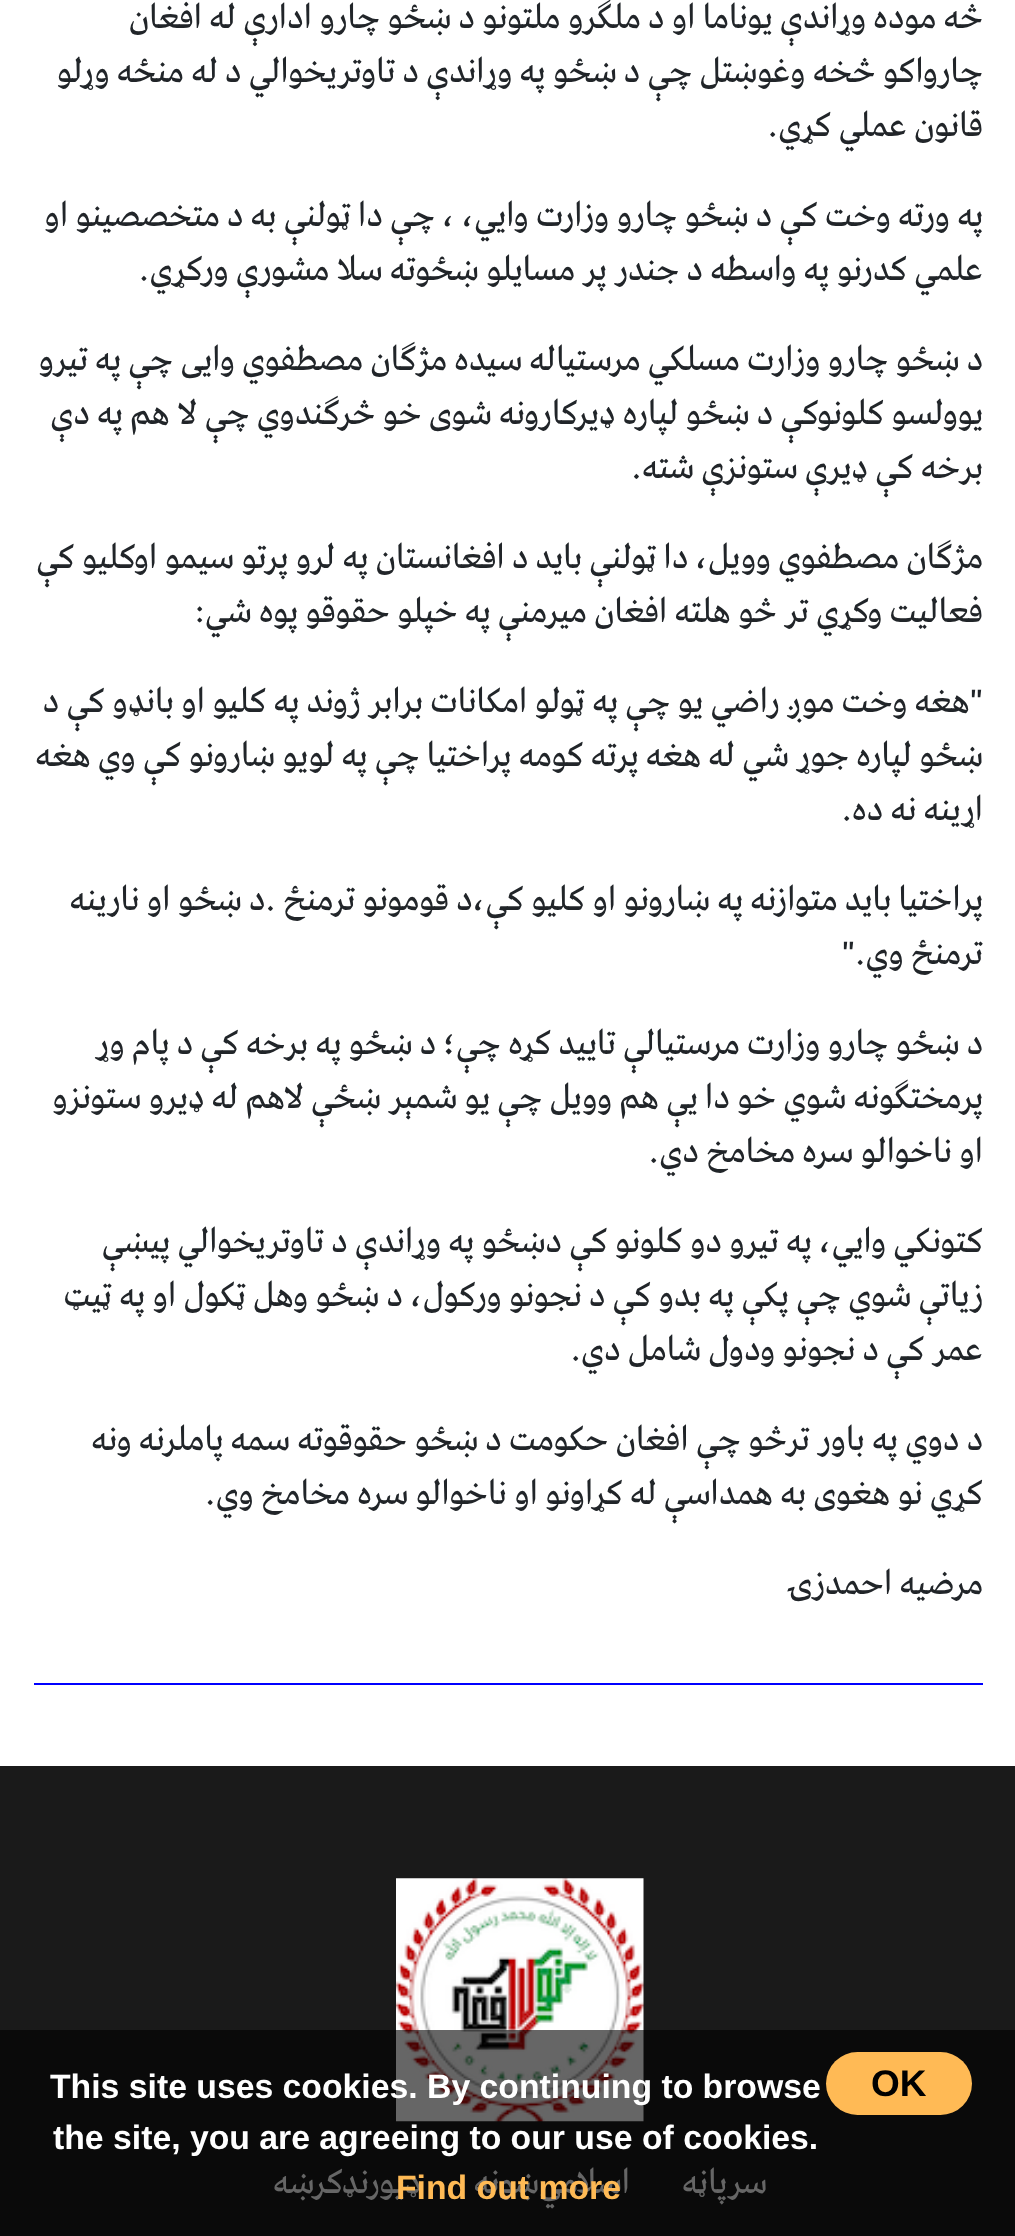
<svg xmlns="http://www.w3.org/2000/svg" width="1015" height="2236" viewBox="0 0 1015 2236">
  <rect width="100%" height="100%" fill="rgb(255,255,255)"/>
  <g font-family="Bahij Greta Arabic" font-size="36" direction="rtl" fill="rgb(33,37,41)">
    <text>
      <tspan x="983" y="28">څه موده وړاندې یوناما او د ملګرو ملتونو د ښځو چارو ادارې له افغان</tspan>
      <tspan x="983" y="82">چارواکو څخه وغوښتل چې د ښځو په وړاندې د تاوتریخوالي د له منځه وړلو</tspan>
      <tspan x="983" y="136">قانون عملي کړي.</tspan>
    </text>
    <text>
      <tspan x="983" y="226">په ورته وخت کې د ښځو چارو وزارت وايي، ، چې دا ټولنې به د متخصصینو او</tspan>
      <tspan x="983" y="280">علمي کدرنو په واسطه د جندر پر مسایلو ښځوته سلا مشورې ورکړي.</tspan>
    </text>
    <text>
      <tspan x="983" y="370">د ښځو چارو وزارت مسلکي مرستیاله سیده مژګان مصطفوي وایی چې په تیرو</tspan>
      <tspan x="983" y="424">یوولسو کلونوکې د ښځو لپاره ډیرکارونه شوی خو څرګندوي چې لا هم په دې</tspan>
      <tspan x="983" y="478">برخه کې ډیرې ستونزې شته.</tspan>
    </text>
    <text>
      <tspan x="983" y="568">مژګان مصطفوي وویل، دا ټولنې باید د افغانستان په لرو پرتو سیمو اوکلیو کې</tspan>
      <tspan x="983" y="622">فعالیت وکړي تر څو هلته افغان میرمنې په خپلو حقوقو پوه شي:</tspan>
    </text>
    <text>
      <tspan x="983" y="712">"هغه وخت موږ راضي یو چې په ټولو امکانات برابر ژوند په کلیو او بانډو کې د</tspan>
      <tspan x="983" y="766">ښځو لپاره جوړ شي له هغه پرته کومه پراختیا چې په لویو ښارونو کې وي هغه</tspan>
      <tspan x="983" y="820">اړینه نه ده.</tspan>
    </text>
    <text>
      <tspan x="983" y="910">پراختیا باید متوازنه په ښارونو او کلیو کې،د قومونو ترمنځ .د ښځو او نارینه</tspan>
      <tspan x="983" y="964">ترمنځ وي."</tspan>
    </text>
    <text>
      <tspan x="983" y="1054">د ښځو چارو وزارت مرستیالې تایید کړه چې؛ د ښځو په برخه کې د پام وړ</tspan>
      <tspan x="983" y="1108">پرمختګونه شوي خو دا یې هم وویل چې یو شمېر ښځې لاهم له ډیرو ستونزو</tspan>
      <tspan x="983" y="1162">او ناخوالو سره مخامخ دي.</tspan>
    </text>
    <text>
      <tspan x="983" y="1252">کتونکي وايي، په تیرو دو کلونو کې دښځو په وړاندې د تاوتریخوالي پیښې</tspan>
      <tspan x="983" y="1306">زیاتې شوي چې پکې په بدو کې د نجونو ورکول، د ښځو وهل ټکول او په ټیټ</tspan>
      <tspan x="983" y="1360">عمر کې د نجونو ودول شامل دي.</tspan>
    </text>
    <text>
      <tspan x="983" y="1450">د دوي په باور ترڅو چې افغان حکومت د ښځو حقوقوته سمه پاملرنه ونه</tspan>
      <tspan x="983" y="1504">کړي نو هغوی به همداسې له کړاونو او ناخوالو سره مخامخ وي.</tspan>
    </text>
    <text x="983" y="1594">مرضیه احمدزۍ</text>
  </g>
  <rect x="34" y="1683" width="949" height="2" fill="rgb(0,0,255)"/>
  <rect x="0" y="1766" width="1015" height="470" fill="rgb(26,26,26)"/>
  <image x="396" y="1878" width="248" height="244" href="pic1.png"/>
  <g font-family="Bahij Greta Arabic" font-size="36" direction="rtl" fill="rgb(255,255,255)">
    <text x="767" y="2193">سرپاڼه</text>
    <text x="630" y="2193">اسلامي‌ښونه</text>
    <text x="421" y="2193">ډیورنډ‌کرښه</text>
  </g>
  <rect x="0" y="2030" width="1015" height="206" fill="rgba(0,0,0,0.6)"/>
  <rect x="826" y="2052" width="146" height="63" rx="31.5" fill="rgb(255,186,85)"/>
  <text x="871" y="2096" font-family="Liberation Sans" font-size="37" font-weight="bold" fill="rgb(0,0,0)">OK</text>
  <g font-family="Liberation Sans" font-size="33.75" font-weight="bold" fill="rgb(255,255,255)">
    <text x="50" y="2098">This site uses cookies. By continuing to browse</text>
    <text x="53" y="2149">the site, you are agreeing to our use of cookies.</text>
  </g>
  <text x="396" y="2199" font-family="Liberation Sans" font-size="33.75" font-weight="bold" fill="rgb(255,186,85)">Find out more</text>
</svg>
